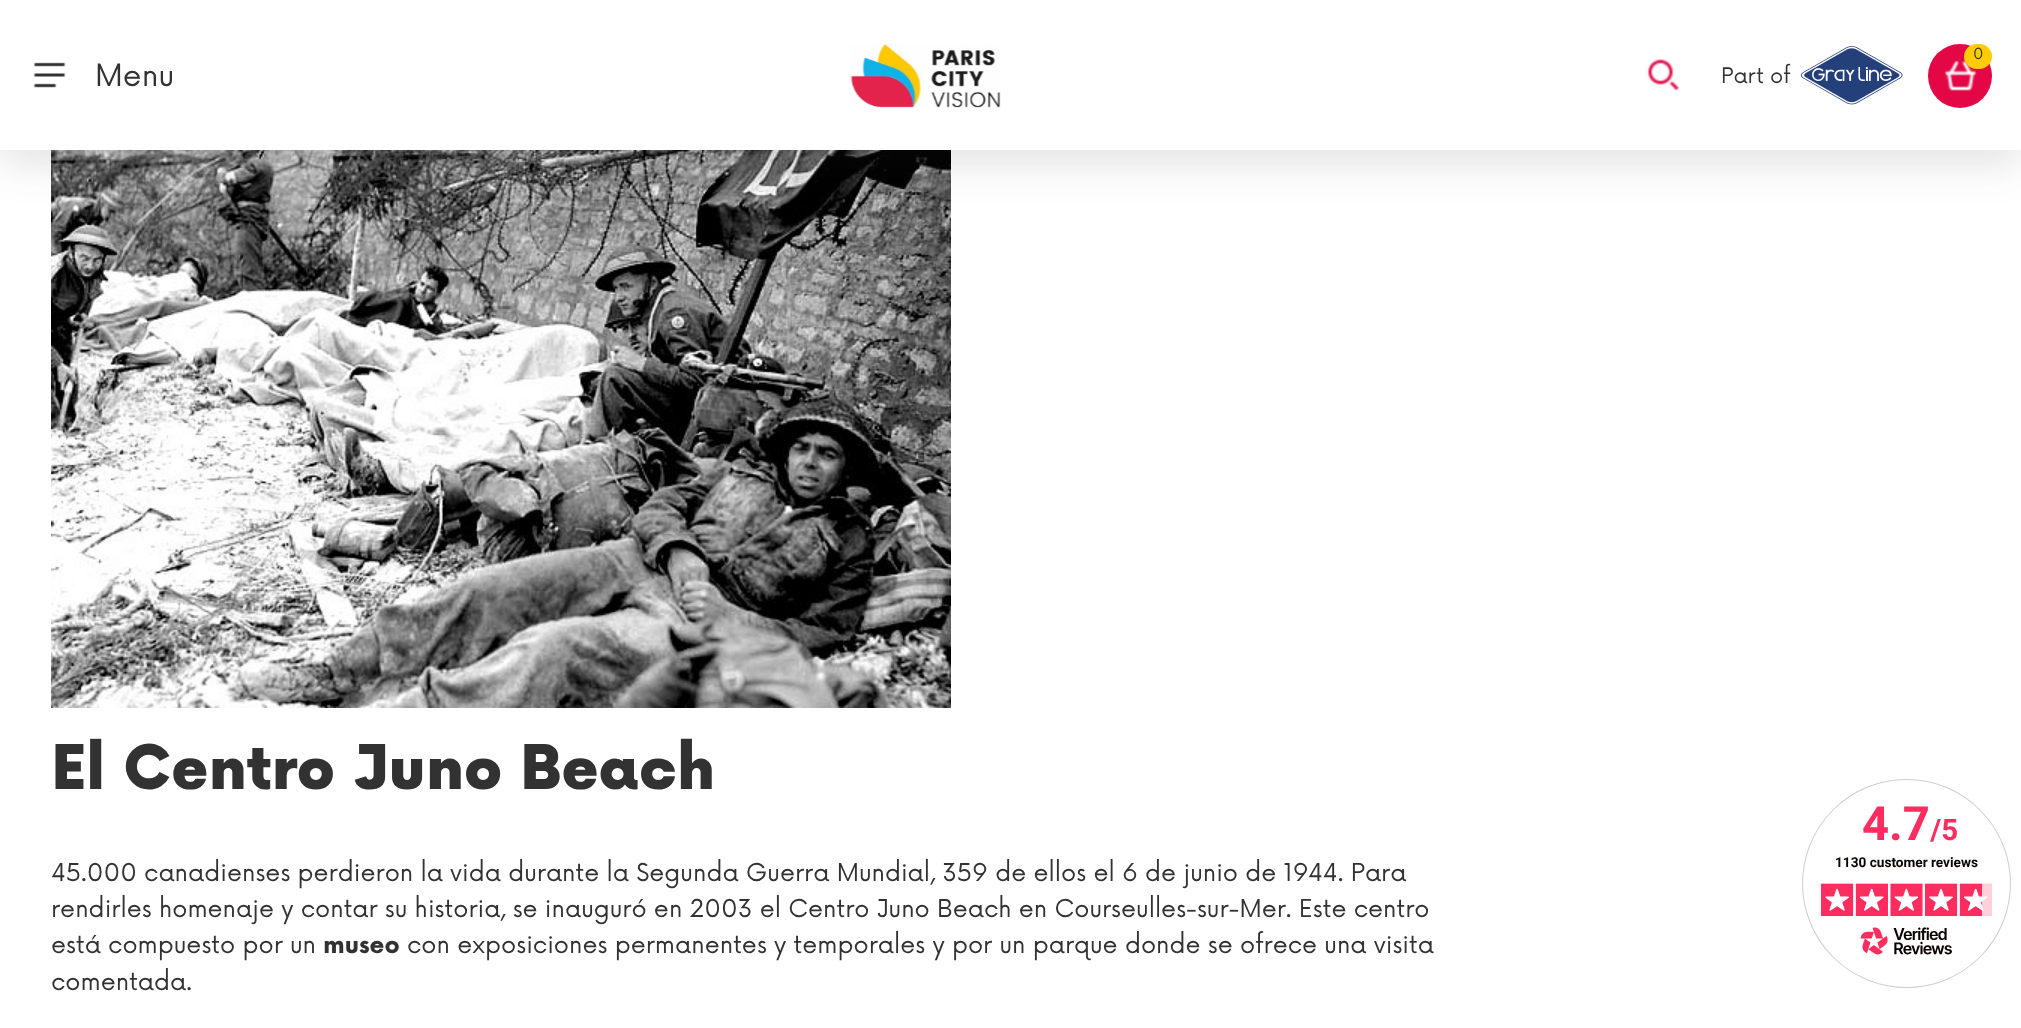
<svg xmlns="http://www.w3.org/2000/svg" width="2021" height="1028" viewBox="0 0 2021 1028">
  <rect width="100%" height="100%" fill="rgb(255,255,255)"/>
  <image x="51" y="150" width="900" height="558" href="pic6.png"/>
  <rect x="0" y="15" width="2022" height="150" fill="rgba(50,50,50,0.13)" filter="blur(19.5px)"/>
  <rect x="0" y="0" width="2021" height="150" fill="rgb(255,255,255)"/>
  <circle cx="1960" cy="76" r="32" fill="rgb(227,7,70)"/>
  <image x="1944" y="60" width="33" height="31" href="pic1.png"/>
  <rect x="1964" y="44" width="28" height="25" rx="12.5" fill="rgb(255,204,0)"/>
  <text x="1973" y="59" font-family="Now" font-size="15" fill="rgb(50,50,50)">0</text>
  <image x="33" y="62" width="33" height="26" href="pic2.png"/>
  <text x="95" y="86" font-family="Now" font-size="30" fill="rgb(50,50,50)">Menu</text>
  <image x="850" y="43" width="151" height="65" href="pic3.png"/>
  <image x="1647" y="59" width="33" height="32" href="pic4.png"/>
  <text x="1721" y="83" font-family="Now" font-size="21" fill="rgb(50,50,50)">Part of</text>
  <image x="1801" y="46" width="102" height="59" href="pic5.png"/>
  <text x="51" y="789" font-family="Now" font-size="60" font-weight="900" fill="rgb(50,50,50)">El Centro Juno Beach</text>
  <g font-family="Now" font-size="24" fill="rgb(50,50,50)">
    <text>
      <tspan x="51" y="881">45.000 canadienses perdieron la vida durante la Segunda Guerra Mundial, 359 de ellos el 6 de junio de 1944. Para</tspan>
      <tspan x="51" y="917">rendirles homenaje y contar su historia, se inauguró en 2003 el Centro Juno Beach en Courseulles-sur-Mer. Este centro</tspan>
      <tspan x="51" y="953">está compuesto por un</tspan>
    </text>
  </g>
  <text x="323" y="953" font-family="Now" font-size="24" font-weight="bold" fill="rgb(50,50,50)">museo</text>
  <g font-family="Now" font-size="24" fill="rgb(50,50,50)">
    <text x="407" y="953">con exposiciones permanentes y temporales y por un parque donde se ofrece una visita</text>
    <text x="51" y="990">comentada.</text>
  </g>
  <image x="1802" y="779" width="209" height="209" href="pic7.png"/>
</svg>
